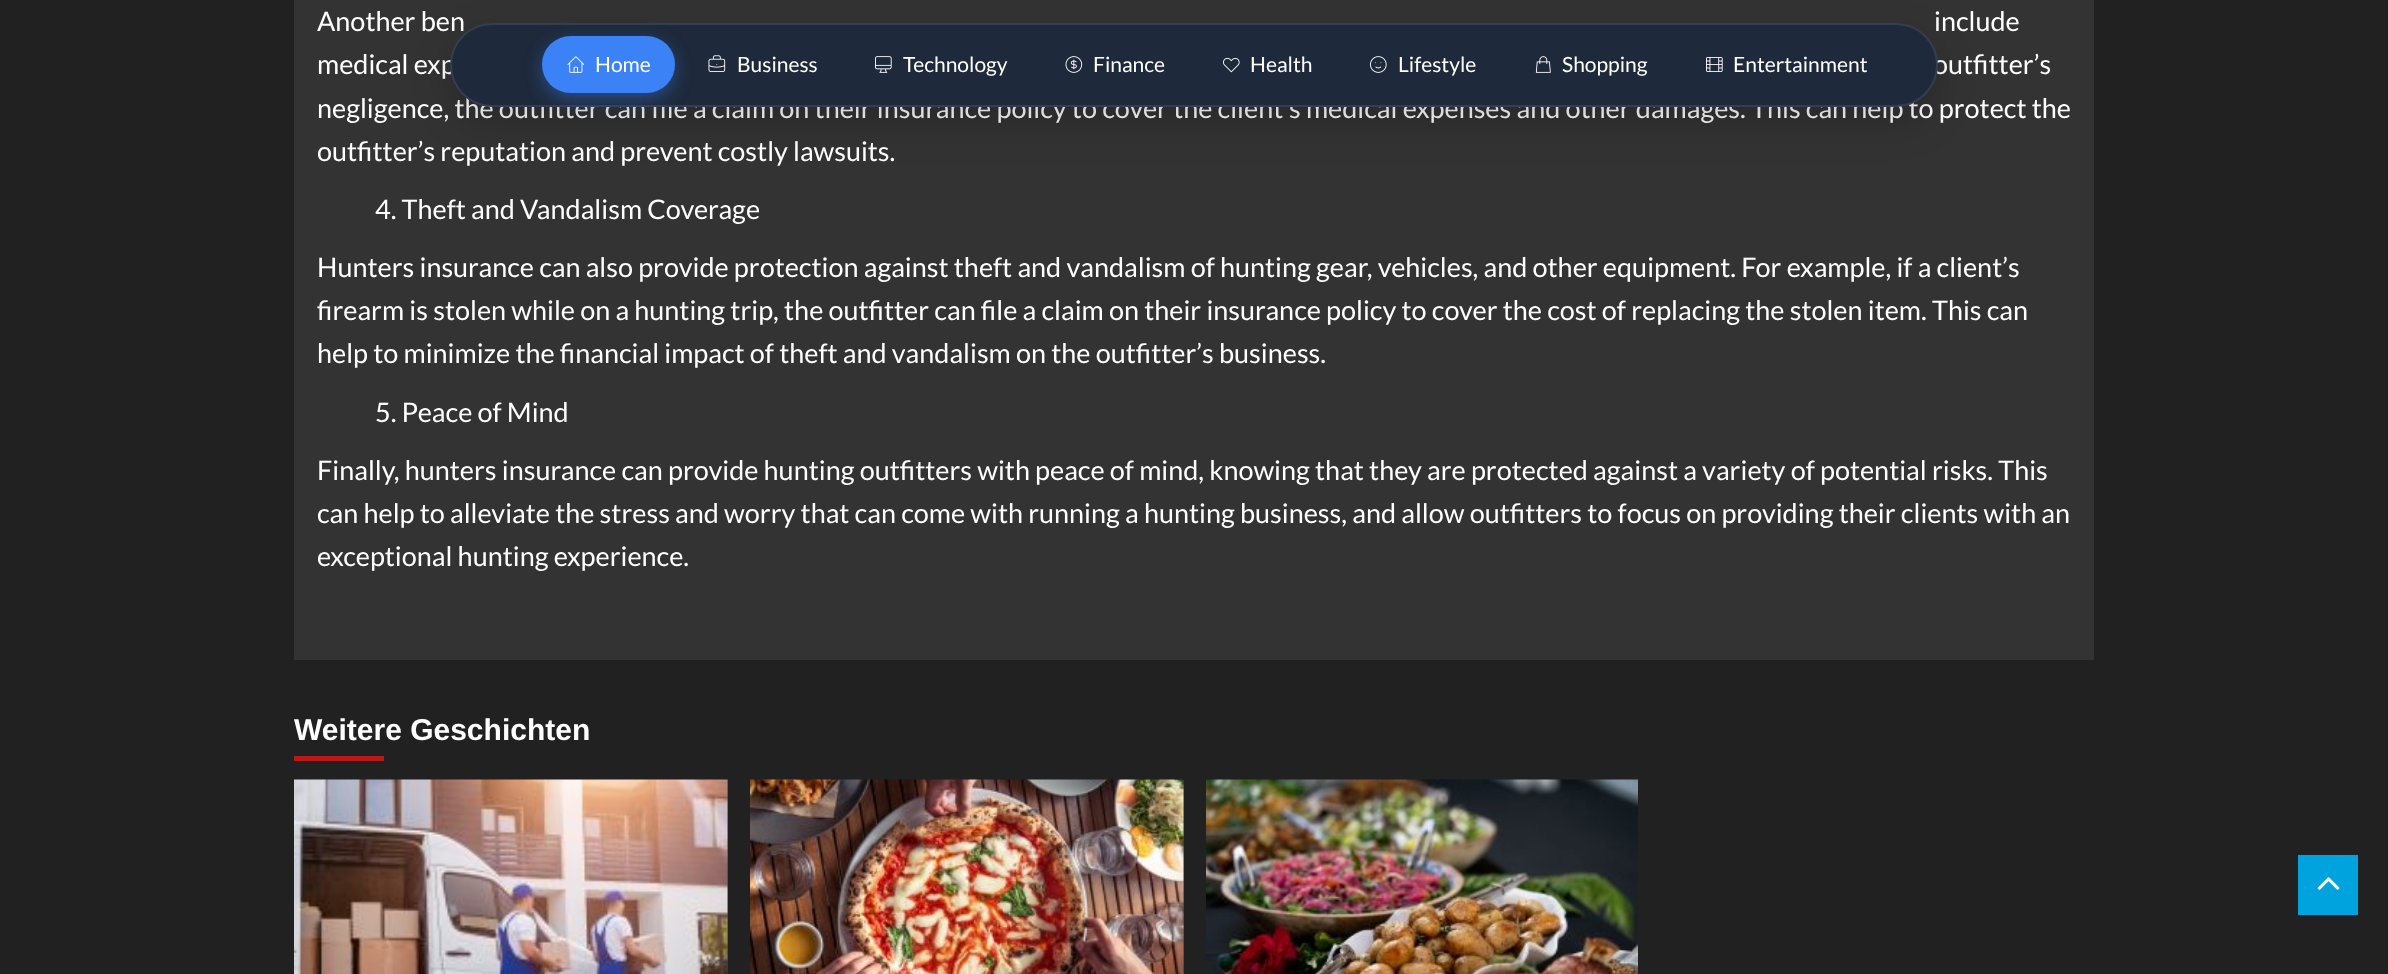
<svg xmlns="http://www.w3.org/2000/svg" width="2388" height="974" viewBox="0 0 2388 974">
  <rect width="100%" height="100%" fill="rgb(33,33,33)"/>
  <rect x="294" y="0" width="1800" height="660" fill="rgb(51,51,51)"/>
  <g font-family="Lato" font-size="27" fill="rgb(255,255,255)">
    <text x="317" y="31">Another ben</text>
    <text x="1934" y="31">include</text>
    <text x="317" y="74">medical exp</text>
    <text x="1933" y="74">outfitter’s</text>
    <text>
      <tspan x="317" y="118">negligence, the outfitter can file a claim on their insurance policy to cover the client’s medical expenses and other damages. This can help to protect the</tspan>
      <tspan x="317" y="161">outfitter’s reputation and prevent costly lawsuits.</tspan>
    </text>
    <text x="375" y="219">4. Theft and Vandalism Coverage</text>
    <text>
      <tspan x="317" y="277">Hunters insurance can also provide protection against theft and vandalism of hunting gear, vehicles, and other equipment. For example, if a client’s</tspan>
      <tspan x="317" y="320">firearm is stolen while on a hunting trip, the outfitter can file a claim on their insurance policy to cover the cost of replacing the stolen item. This can</tspan>
      <tspan x="317" y="363">help to minimize the financial impact of theft and vandalism on the outfitter’s business.</tspan>
    </text>
    <text x="375" y="422">5. Peace of Mind</text>
    <text>
      <tspan x="317" y="480">Finally, hunters insurance can provide hunting outfitters with peace of mind, knowing that they are protected against a variety of potential risks. This</tspan>
      <tspan x="317" y="523">can help to alleviate the stress and worry that can come with running a hunting business, and allow outfitters to focus on providing their clients with an</tspan>
      <tspan x="317" y="566">exceptional hunting experience.</tspan>
    </text>
  </g>
  <text x="294" y="740" font-family="Liberation Sans" font-size="30" font-weight="bold" fill="rgb(255,255,255)">Weitere Geschichten</text>
  <rect x="294" y="756" width="90" height="5" fill="rgb(187,25,25)"/>
  <rect x="727" y="780" width="1" height="194" fill="rgb(61,61,61)"/>
  <image x="294" y="779" width="434" height="195" href="pic1.png"/>
  <rect x="1183" y="780" width="1" height="194" fill="rgb(61,61,61)"/>
  <image x="750" y="779" width="434" height="195" href="pic2.png"/>
  <image x="1206" y="779" width="432" height="195" href="pic3.png"/>
  <rect x="450" y="38" width="1488" height="84" rx="42" fill="rgba(0,0,0,0.2)" filter="blur(19px)"/>
  <rect x="450" y="23" width="1488" height="84" rx="42" fill="rgb(30,41,59)"/>
  <rect x="451" y="24" width="1486" height="82" rx="41" fill="none" stroke="rgba(255,255,255,0.1)" stroke-width="2"/>
  <rect x="542" y="42" width="133" height="57" rx="28.5" fill="rgba(59,130,246,0.4)" filter="blur(9px)"/>
  <rect x="542" y="36" width="133" height="57" rx="28.5" fill="rgb(59,130,246)"/>
  <image x="567" y="56" width="18" height="17" href="pic4.png"/>
  <text x="595" y="72" font-family="Lato" font-size="21" fill="rgb(255,255,255)">Home</text>
  <image x="708" y="55" width="18" height="17" href="pic5.png"/>
  <text x="737" y="72" font-family="Lato" font-size="21" fill="rgb(255,255,255)">Business</text>
  <image x="875" y="56" width="17" height="17" href="pic6.png"/>
  <text x="903" y="72" font-family="Lato" font-size="21" fill="rgb(255,255,255)">Technology</text>
  <image x="1065" y="56" width="18" height="17" href="pic7.png"/>
  <text x="1093" y="72" font-family="Lato" font-size="21" fill="rgb(255,255,255)">Finance</text>
  <image x="1223" y="57" width="17" height="16" href="pic8.png"/>
  <text x="1250" y="72" font-family="Lato" font-size="21" fill="rgb(255,255,255)">Health</text>
  <image x="1370" y="56" width="17" height="17" href="pic9.png"/>
  <text x="1398" y="72" font-family="Lato" font-size="21" fill="rgb(255,255,255)">Lifestyle</text>
  <image x="1535" y="56" width="16" height="17" href="pic10.png"/>
  <text x="1562" y="72" font-family="Lato" font-size="21" fill="rgb(255,255,255)">Shopping</text>
  <image x="1706" y="57" width="17" height="15" href="pic11.png"/>
  <text x="1733" y="72" font-family="Lato" font-size="21" fill="rgb(255,255,255)">Entertainment</text>
  <rect x="2298" y="855" width="60" height="60" fill="rgb(0,163,221)"/>
  <image x="2317" y="877" width="23" height="13" href="pic12.png"/>
</svg>
